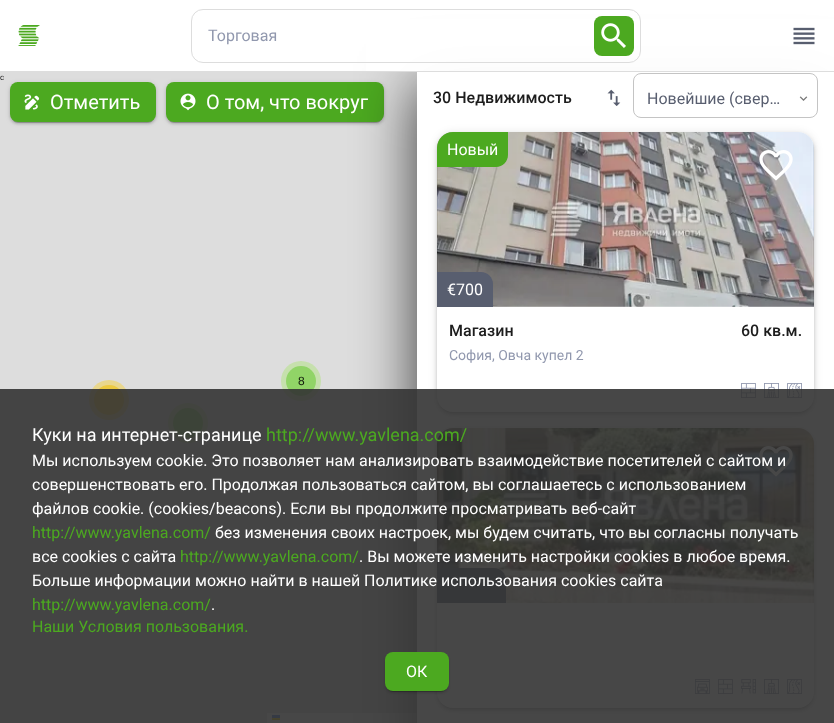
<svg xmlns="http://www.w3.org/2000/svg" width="834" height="723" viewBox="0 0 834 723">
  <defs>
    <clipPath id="clip1"><path d="M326 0H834V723H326ZM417 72H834V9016H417Z" clip-rule="evenodd"/></clipPath>
  </defs>
  <rect width="100%" height="100%" fill="rgb(255,255,255)"/>
  <rect x="0" y="72" width="417" height="651" fill="rgb(221,221,221)"/>
  <rect x="166" y="83" width="218" height="40" rx="8" fill="rgba(0,0,0,0.12)" filter="blur(2.5px)"/>
  <rect x="166" y="84" width="218" height="40" rx="8" fill="rgba(0,0,0,0.14)" filter="blur(1px)"/>
  <rect x="168" y="87" width="214" height="36" rx="6" fill="rgba(0,0,0,0.2)" filter="blur(0.5px)"/>
  <rect x="166" y="82" width="218" height="40" rx="8" fill="rgb(76,169,32)"/>
  <rect x="267" y="713" width="150" height="10" fill="rgb(248,248,248)"/>
  <g clip-path="url(#clip1)">
    <rect x="417" y="84" width="417" height="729" fill="rgba(0,0,0,0.75)" filter="blur(30px)"/>
  </g>
  <rect x="366" y="19" width="468" height="52" fill="rgba(255,255,255,0.95)"/>
  <rect x="0" y="71" width="834" height="1" fill="rgb(221,221,221)"/>
  <image x="18" y="25" width="22" height="21" href="pic1.png"/>
  <rect x="191.5" y="9.5" width="449" height="53" rx="11.5" fill="none" stroke="rgb(221,221,221)"/>
  <text x="208" y="41" font-family="Roboto" font-size="16" fill="rgb(145,152,174)">Торговая</text>
  <rect x="594" y="16" width="40" height="40" rx="8" fill="rgb(76,169,32)"/>
  <image x="601" y="23" width="25" height="25" href="pic2.png"/>
  <image x="793" y="27" width="22" height="18" href="pic3.png"/>
  <text x="0" y="80" font-family="Roboto" font-size="8" fill="rgb(29,29,29)">с</text>
  <rect x="10" y="83" width="146" height="40" rx="8" fill="rgba(0,0,0,0.12)" filter="blur(2.5px)"/>
  <rect x="10" y="84" width="146" height="40" rx="8" fill="rgba(0,0,0,0.14)" filter="blur(1px)"/>
  <rect x="12" y="87" width="142" height="36" rx="6" fill="rgba(0,0,0,0.2)" filter="blur(0.5px)"/>
  <rect x="10" y="82" width="146" height="40" rx="8" fill="rgb(76,169,32)"/>
  <image x="24" y="94" width="16" height="16" href="pic4.png"/>
  <text x="50" y="109" font-family="Roboto" font-size="20" fill="rgb(255,255,255)">Отметить</text>
  <image x="180" y="93" width="16" height="18" href="pic5.png"/>
  <text x="206" y="109" font-family="Roboto" font-size="20" fill="rgb(255,255,255)">О том, что вокруг</text>
  <circle cx="109" cy="400" r="20" fill="rgb(233,215,141)"/>
  <circle cx="109" cy="400" r="15" fill="rgb(237,202,64)"/>
  <circle cx="188" cy="423" r="20" fill="rgb(198,224,173)"/>
  <circle cx="188" cy="423" r="15" fill="rgb(145,212,103)"/>
  <circle cx="301" cy="381" r="20" fill="rgb(198,224,173)"/>
  <circle cx="301" cy="381" r="15" fill="rgb(145,212,103)"/>
  <text x="298" y="385" font-family="Liberation Sans" font-size="12" fill="rgb(19,28,13)">8</text>
  <image x="272" y="715" width="8" height="5" href="pic6.png"/>
  <text x="433" y="103" font-family="Roboto" font-size="16" font-weight="500" fill="rgb(29,29,29)">30 Недвижимость</text>
  <image x="607" y="89" width="14" height="17" href="pic7.png"/>
  <image x="799" y="96" width="9" height="5" href="pic8.png"/>
  <rect x="633.5" y="73.5" width="184" height="44" rx="7.5" fill="none" stroke="rgb(196,196,196)"/>
  <text x="647" y="104" font-family="Roboto" font-size="16" fill="rgb(88,94,111)">Новейшие (свер…</text>
  <rect x="437" y="133" width="377" height="280" rx="16" fill="rgba(0,0,0,0.12)" filter="blur(4px)"/>
  <rect x="437" y="135" width="377" height="280" rx="16" fill="rgba(0,0,0,0.14)" filter="blur(2px)"/>
  <rect x="439" y="137" width="373" height="276" rx="14" fill="rgba(0,0,0,0.2)" filter="blur(1.5px)"/>
  <rect x="437" y="132" width="377" height="280" rx="16" fill="rgb(255,255,255)"/>
  <image x="437" y="132" width="377" height="175" href="pic9.png"/>
  <path d="M453 132H508V155C508 161.5 502.5 167 496 167H437V148C437 139 444 132 453 132Z" fill="rgb(76,169,32)"/>
  <text x="447" y="155" font-family="Roboto" font-size="16" fill="rgb(255,255,255)">Новый</text>
  <image x="759" y="150" width="34" height="31" href="pic10.png"/>
  <path d="M437 272H481C487.5 272 493 277.5 493 284V307H437Z" fill="rgb(88,94,111)"/>
  <text x="447" y="295" font-family="Roboto" font-size="16" fill="rgb(255,255,255)">€700</text>
  <g font-family="Roboto" font-size="16" font-weight="500" fill="rgb(29,29,29)">
    <text x="449" y="336">Магазин</text>
    <text x="741" y="336">60 кв.м.</text>
  </g>
  <text x="449" y="360" font-family="Roboto" font-size="14" fill="rgb(145,152,174)">София, Овча купел 2</text>
  <image x="741" y="383" width="15" height="15" href="pic11.png"/>
  <image x="764" y="383" width="15" height="15" href="pic12.png"/>
  <image x="787" y="383" width="15" height="15" href="pic13.png"/>
  <rect x="437" y="429" width="377" height="280" rx="16" fill="rgba(0,0,0,0.12)" filter="blur(4px)"/>
  <rect x="437" y="431" width="377" height="280" rx="16" fill="rgba(0,0,0,0.14)" filter="blur(2px)"/>
  <rect x="439" y="433" width="373" height="276" rx="14" fill="rgba(0,0,0,0.2)" filter="blur(1.5px)"/>
  <rect x="437" y="428" width="377" height="280" rx="16" fill="rgb(255,255,255)"/>
  <image x="437" y="428" width="377" height="175" href="pic14.png"/>
  <image x="759" y="446" width="34" height="31" href="pic15.png"/>
  <path d="M437 568H494C500.5 568 506 573.5 506 580V603H437Z" fill="rgb(88,94,111)"/>
  <image x="695" y="679" width="15" height="15" href="pic16.png"/>
  <image x="718" y="679" width="15" height="15" href="pic11.png"/>
  <image x="741" y="679" width="15" height="15" href="pic17.png"/>
  <image x="764" y="679" width="15" height="15" href="pic12.png"/>
  <image x="787" y="679" width="15" height="15" href="pic13.png"/>
  <rect x="0" y="389" width="834" height="334" fill="rgba(51,51,51,0.9)"/>
  <text x="32" y="441" font-family="Roboto" font-size="18" fill="rgb(255,255,255)">Куки на интернет-странице</text>
  <text x="266" y="441" font-family="Roboto" font-size="18" fill="rgb(76,169,32)">http://www.yavlena.com/</text>
  <g font-family="Roboto" font-size="16" fill="rgb(255,255,255)">
    <text>
      <tspan x="32" y="466">Мы используем cookie. Это позволяет нам анализировать взаимодействие посетителей с сайтом и</tspan>
      <tspan x="32" y="490">совершенствовать его. Продолжая пользоваться сайтом, вы соглашаетесь с использованием</tspan>
      <tspan x="32" y="514">файлов cookie. (cookies/beacons). Если вы продолжите просматривать веб-сайт</tspan>
    </text>
  </g>
  <text x="32" y="538" font-family="Roboto" font-size="16" fill="rgb(76,169,32)">http://www.yavlena.com/</text>
  <g font-family="Roboto" font-size="16" fill="rgb(255,255,255)">
    <text x="215" y="538">без изменения своих настроек, мы будем считать, что вы согласны получать</text>
    <text x="32" y="562">все cookies с сайта</text>
  </g>
  <text x="180" y="562" font-family="Roboto" font-size="16" fill="rgb(76,169,32)">http://www.yavlena.com/</text>
  <g font-family="Roboto" font-size="16" fill="rgb(255,255,255)">
    <text x="359" y="562">. Вы можете изменить настройки cookies в любое время.</text>
    <text x="32" y="586">Больше информации можно найти в нашей Политике использования cookies сайта</text>
  </g>
  <text x="32" y="610" font-family="Roboto" font-size="16" fill="rgb(76,169,32)">http://www.yavlena.com/</text>
  <text x="211" y="610" font-family="Roboto" font-size="16" fill="rgb(255,255,255)">.</text>
  <text x="32" y="632" font-family="Roboto" font-size="16" fill="rgb(76,169,32)">Наши Условия пользования.</text>
  <rect x="385" y="654" width="64" height="39" rx="8" fill="rgba(0,0,0,0.14)" filter="blur(1px)"/>
  <rect x="387" y="657" width="60" height="35" rx="6" fill="rgba(0,0,0,0.2)" filter="blur(0.5px)"/>
  <rect x="385" y="652" width="64" height="39" rx="8" fill="rgb(76,169,32)"/>
  <text x="406" y="677" font-family="Roboto" font-size="16" fill="rgb(255,255,255)">ОК</text>
</svg>
